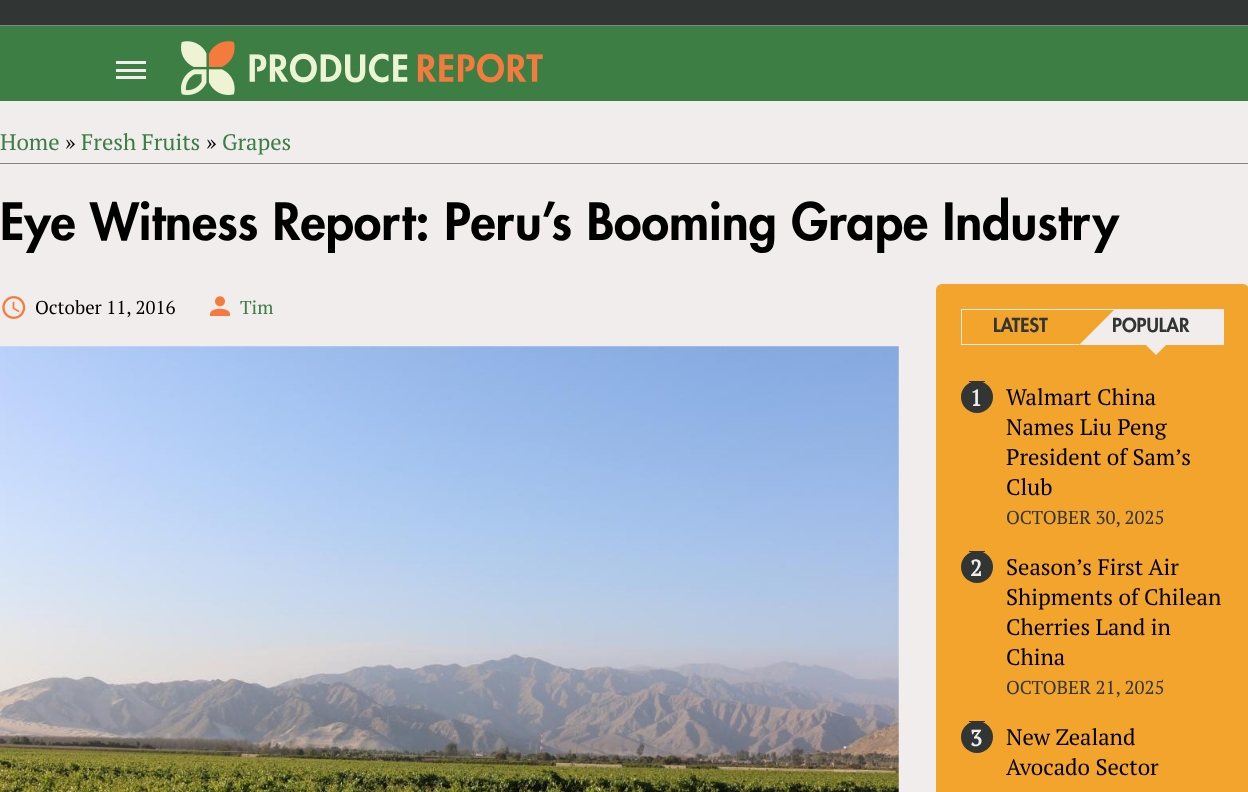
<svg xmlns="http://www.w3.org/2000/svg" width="1248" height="792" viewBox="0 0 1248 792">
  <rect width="100%" height="100%" fill="rgb(49,53,52)"/>
  <rect x="0" y="26" width="1248" height="75" fill="rgb(60,126,68)"/>
  <rect x="0" y="25" width="1248" height="1" fill="rgb(131,131,132)"/>
  <rect x="116" y="76" width="30" height="3" fill="rgb(240,237,236)"/>
  <rect x="116" y="69" width="30" height="3" fill="rgb(240,237,236)"/>
  <rect x="116" y="61" width="30" height="3" fill="rgb(240,237,236)"/>
  <image x="181" y="41" width="362" height="54" href="pic1.png"/>
  <rect x="0" y="101" width="1248" height="691" fill="rgb(240,237,236)"/>
  <rect x="0" y="163" width="1248" height="1" fill="rgb(131,131,132)"/>
  <text x="0" y="150" font-family="PT Serif" font-size="22.5" fill="rgb(60,126,68)">Home</text>
  <text x="65" y="150" font-family="PT Serif" font-size="22.5" fill="rgb(0,0,0)">»</text>
  <text x="81" y="150" font-family="PT Serif" font-size="22.5" fill="rgb(60,126,68)">Fresh Fruits</text>
  <text x="206" y="150" font-family="PT Serif" font-size="22.5" fill="rgb(0,0,0)">»</text>
  <text x="222" y="150" font-family="PT Serif" font-size="22.5" fill="rgb(60,126,68)">Grapes</text>
  <text x="0" y="240" font-family="Futura" font-size="50" font-weight="900" fill="rgb(0,0,0)">Eye Witness Report: Peru’s Booming Grape Industry</text>
  <image x="2" y="296" width="24" height="23" href="pic2.png"/>
  <text x="35" y="314" font-family="PT Serif" font-size="18.75" fill="rgb(0,0,0)">October 11, 2016</text>
  <image x="210" y="296" width="20" height="20" href="pic3.png"/>
  <text x="240" y="314" font-family="PT Serif" font-size="18.75" fill="rgb(60,126,68)">Tim</text>
  <image x="0" y="346" width="899" height="446" href="pic4.png"/>
  <rect x="936" y="284" width="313" height="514" rx="6" fill="rgb(242,164,45)"/>
  <rect x="961.5" y="309.5" width="262" height="35" fill="none" stroke="rgb(240,237,236)"/>
  <text x="993" y="332" font-family="Futura" font-size="18.75" font-weight="900" fill="rgb(49,53,52)">LATEST</text>
  <rect x="1079" y="310" width="144" height="34" fill="rgb(240,237,236)"/>
  <text x="1112" y="332" font-family="Futura" font-size="18.75" font-weight="900" fill="rgb(49,53,52)">POPULAR</text>
  <path d="M1079 310H1114L1079 345Z" fill="rgb(242,164,45)"/>
  <path d="M1136 335H1176L1156 355Z" fill="rgb(240,237,236)"/>
  <circle cx="977" cy="397" r="16" fill="rgb(49,53,52)"/>
  <rect x="969" y="381" width="16" height="1" fill="rgb(49,53,52)"/>
  <text x="970" y="406" font-family="PT Serif" font-size="22.5" font-weight="bold" fill="rgb(240,237,236)">1</text>
  <g font-family="PT Serif" font-size="22.5" fill="rgb(0,0,0)">
    <text>
      <tspan x="1006" y="405">Walmart China</tspan>
      <tspan x="1006" y="435">Names Liu Peng</tspan>
      <tspan x="1006" y="465">President of Sam’s</tspan>
      <tspan x="1006" y="495">Club</tspan>
    </text>
  </g>
  <text x="1006" y="524" font-family="PT Serif" font-size="18.75" fill="rgb(49,53,52)">OCTOBER 30, 2025</text>
  <circle cx="977" cy="567" r="16" fill="rgb(49,53,52)"/>
  <rect x="969" y="551" width="16" height="1" fill="rgb(49,53,52)"/>
  <text x="970" y="576" font-family="PT Serif" font-size="22.5" font-weight="bold" fill="rgb(240,237,236)">2</text>
  <g font-family="PT Serif" font-size="22.5" fill="rgb(0,0,0)">
    <text>
      <tspan x="1006" y="575">Season’s First Air</tspan>
      <tspan x="1006" y="605">Shipments of Chilean</tspan>
      <tspan x="1006" y="635">Cherries Land in</tspan>
      <tspan x="1006" y="665">China</tspan>
    </text>
  </g>
  <text x="1006" y="694" font-family="PT Serif" font-size="18.75" fill="rgb(49,53,52)">OCTOBER 21, 2025</text>
  <circle cx="977" cy="737" r="16" fill="rgb(49,53,52)"/>
  <rect x="969" y="721" width="16" height="1" fill="rgb(49,53,52)"/>
  <text x="970" y="746" font-family="PT Serif" font-size="22.5" font-weight="bold" fill="rgb(240,237,236)">3</text>
  <g font-family="PT Serif" font-size="22.5" fill="rgb(0,0,0)">
    <text>
      <tspan x="1006" y="745">New Zealand</tspan>
      <tspan x="1006" y="775">Avocado Sector</tspan>
    </text>
  </g>
</svg>
